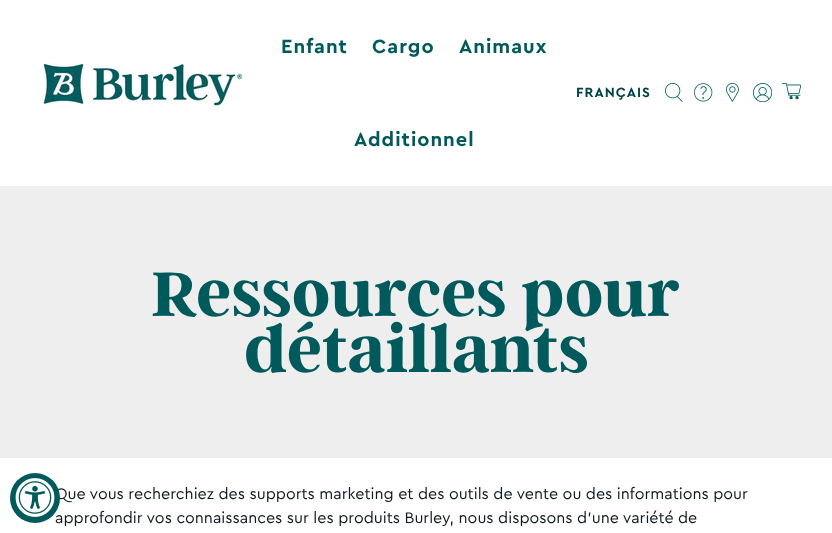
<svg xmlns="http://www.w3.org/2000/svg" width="832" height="533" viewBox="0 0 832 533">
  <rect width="100%" height="100%" fill="rgb(255,255,255)"/>
  <image x="43" y="63" width="200" height="43" href="pic1.png"/>
  <g font-family="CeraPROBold" font-size="20" font-weight="bold" letter-spacing="1" fill="rgb(0,90,92)">
    <text x="281" y="53">Enfant</text>
    <text x="372" y="53">Cargo</text>
    <text x="459" y="53">Animaux</text>
    <text x="354" y="146">Additionnel</text>
  </g>
  <text x="576" y="97" font-family="CeraPROBold" font-size="14" font-weight="bold" letter-spacing="1" fill="rgb(0,67,69)">FRANÇAIS</text>
  <image x="665" y="83" width="18" height="19" href="pic2.png"/>
  <image x="694" y="83" width="19" height="19" href="pic3.png"/>
  <image x="726" y="83" width="13" height="19" href="pic4.png"/>
  <image x="753" y="83" width="19" height="19" href="pic5.png"/>
  <image x="782" y="83" width="19" height="17" href="pic6.png"/>
  <g font-family="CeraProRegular" font-size="16" fill="rgb(17,25,33)">
    <text>
      <tspan x="55" y="499">Que vous recherchiez des supports marketing et des outils de vente ou des informations pour</tspan>
      <tspan x="55" y="523">approfondir vos connaissances sur les produits Burley, nous disposons d'une variété de</tspan>
    </text>
  </g>
  <circle cx="35" cy="498" r="25" fill="rgb(0,90,92)"/>
  <image x="15" y="478" width="40" height="39" href="pic7.png"/>
  <rect x="0" y="186" width="832" height="272" fill="rgb(238,238,238)"/>
  <g font-family="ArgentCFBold" font-size="70" font-weight="bold" fill="rgb(0,90,92)">
    <text x="151" y="316">Ressources pour</text>
    <text x="244" y="372">détaillants</text>
  </g>
</svg>
